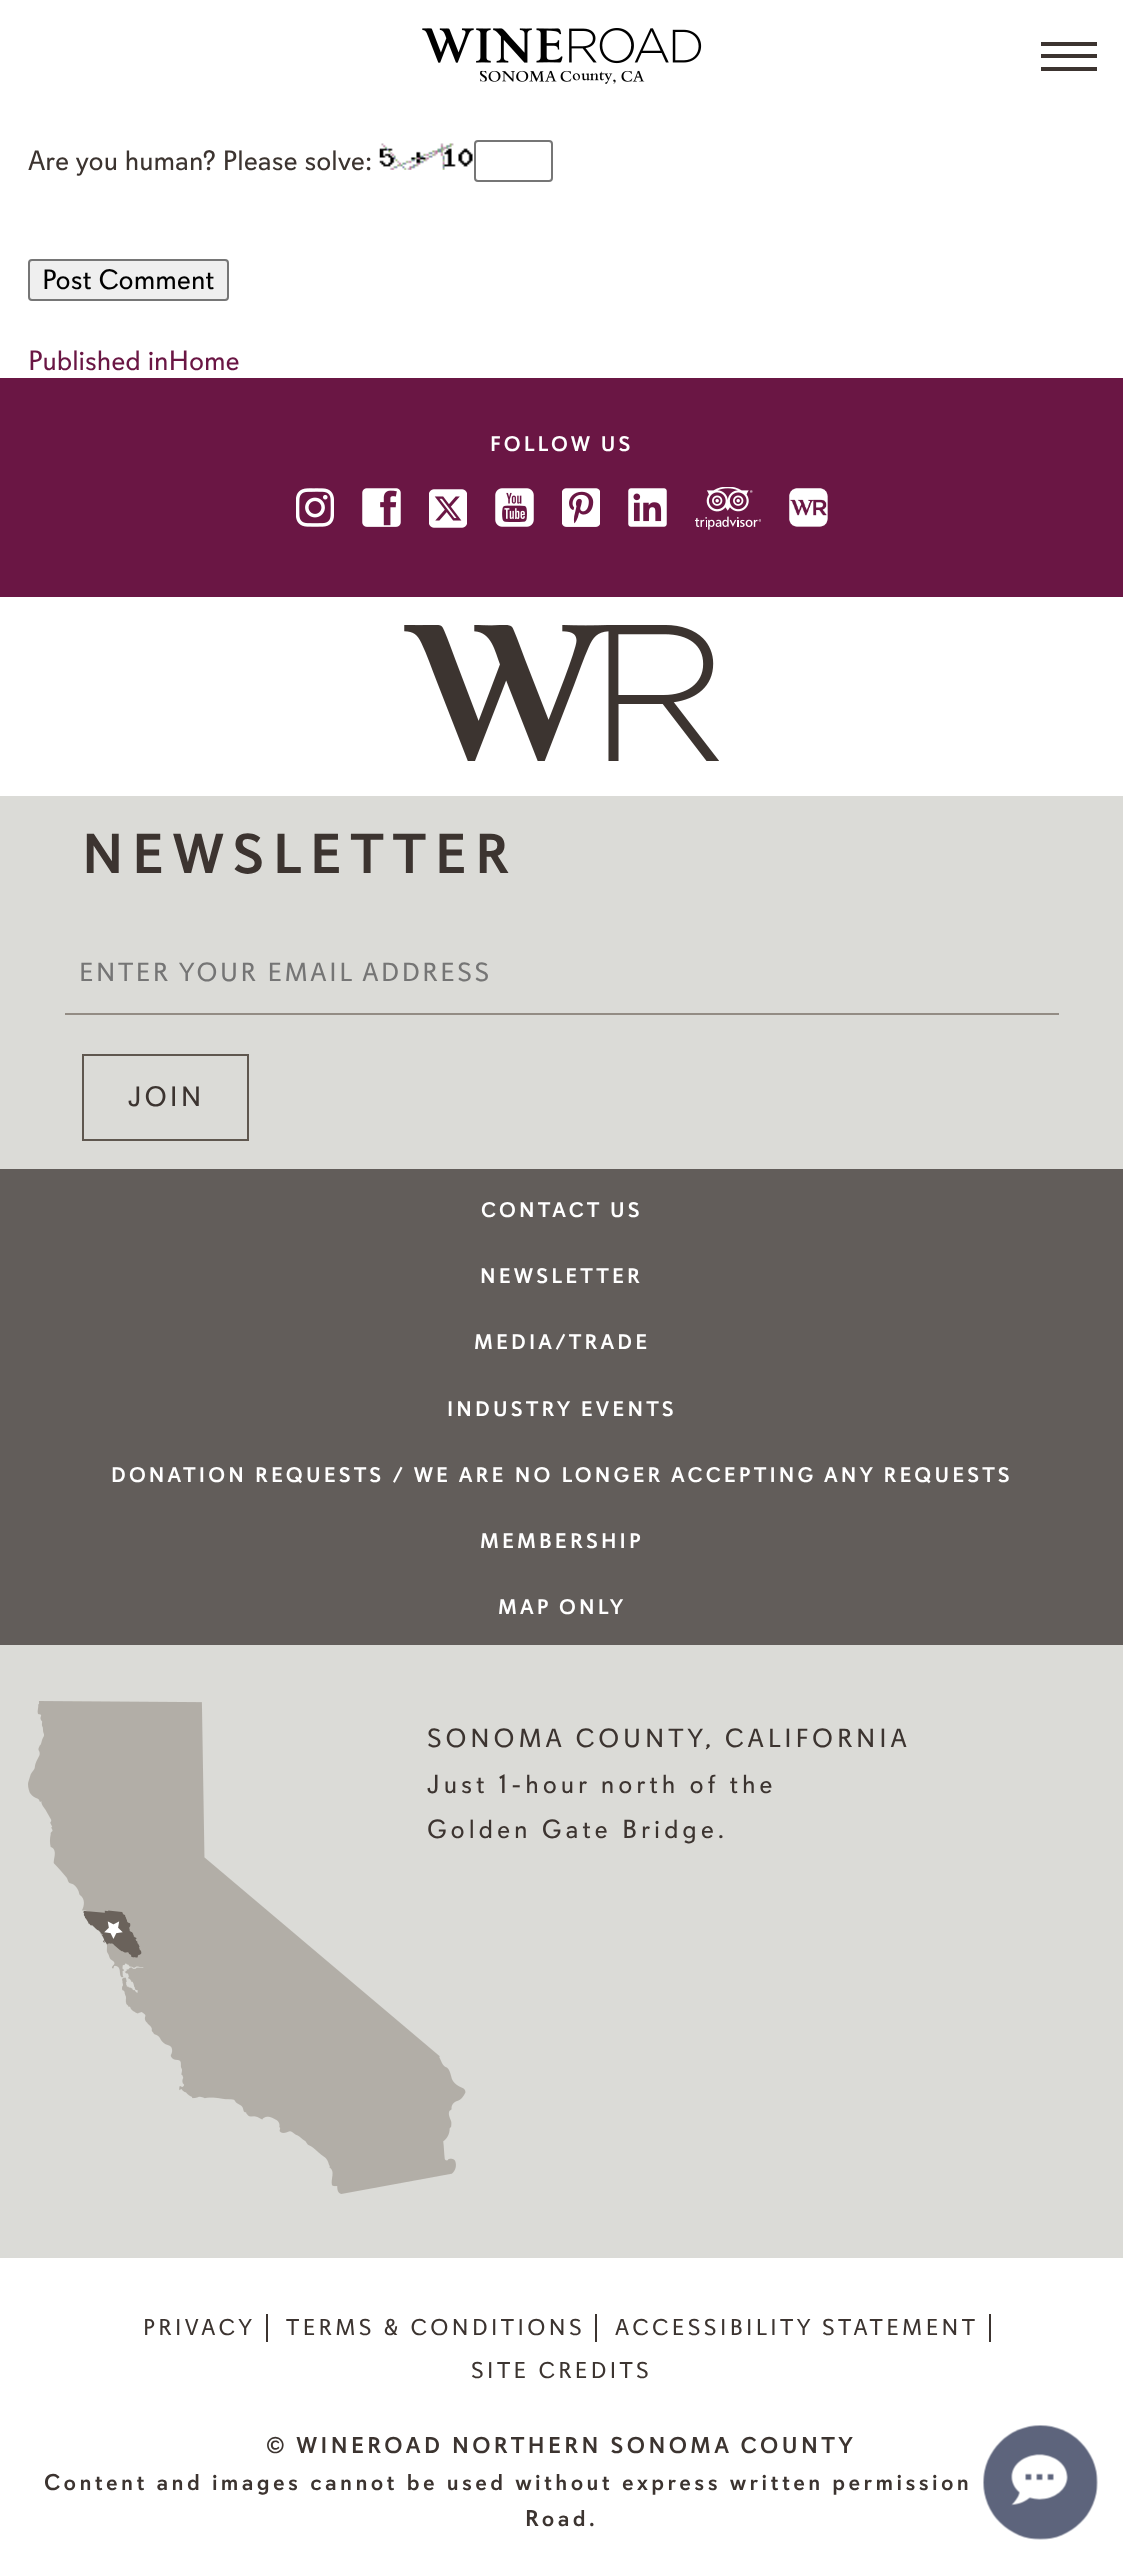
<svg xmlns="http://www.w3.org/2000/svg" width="1123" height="2565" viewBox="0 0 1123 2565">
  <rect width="100%" height="100%" fill="rgb(255,255,255)"/>
  <image x="422" y="28" width="280" height="56" href="pic1.png"/>
  <rect x="1041" y="54" width="56" height="4" fill="rgb(60,52,48)"/>
  <rect x="1041" y="42" width="56" height="4" fill="rgb(60,52,48)"/>
  <rect x="1041" y="67" width="56" height="4" fill="rgb(60,52,48)"/>
  <text x="28" y="170" font-family="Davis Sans" font-size="28" fill="rgb(60,52,48)">Are you human? Please solve:</text>
  <image x="379" y="143" width="94" height="27" href="pic2.png"/>
  <rect x="475" y="141" width="77" height="40" rx="3" fill="none" stroke="rgb(118,118,118)" stroke-width="2"/>
  <rect x="29" y="260" width="199" height="40" rx="3" fill="rgb(239,239,239)" stroke="rgb(118,118,118)" stroke-width="2"/>
  <text x="42" y="289" font-family="Davis Sans" font-size="28" fill="rgb(0,0,0)">Post Comment</text>
  <text x="28" y="370" font-family="Davis Sans" font-size="28" fill="rgb(106,22,68)">Published inHome</text>
  <rect x="0" y="378" width="1123" height="219" fill="rgb(106,22,68)"/>
  <text x="490" y="451" font-family="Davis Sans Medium" font-size="21" font-weight="500" letter-spacing="3.15" fill="rgb(255,255,255)">FOLLOW US</text>
  <image x="296" y="488" width="38" height="39" href="pic3.png"/>
  <image x="362" y="488" width="39" height="39" href="pic4.png"/>
  <image x="429" y="489" width="38" height="39" href="pic5.png"/>
  <image x="495" y="488" width="39" height="39" href="pic6.png"/>
  <image x="562" y="488" width="38" height="39" href="pic7.png"/>
  <image x="628" y="488" width="39" height="39" href="pic8.png"/>
  <image x="695" y="487" width="66" height="43" href="pic9.png"/>
  <image x="789" y="488" width="39" height="39" href="pic10.png"/>
  <image x="404" y="625" width="315" height="136" href="pic11.png"/>
  <rect x="0" y="796" width="1123" height="1462" fill="rgb(219,219,215)"/>
  <text x="82" y="873" font-family="Davis Sans Medium" font-size="56" font-weight="500" letter-spacing="8.5" fill="rgb(60,52,48)">NEWSLETTER</text>
  <rect x="65" y="1013" width="994" height="2" fill="rgb(147,140,132)"/>
  <text x="79" y="981" font-family="Davis Sans" font-size="26.25" letter-spacing="2.6" fill="rgb(117,117,117)">ENTER YOUR EMAIL ADDRESS</text>
  <rect x="83" y="1055" width="165" height="85" fill="none" stroke="rgb(95,87,79)" stroke-width="2"/>
  <text x="128" y="1106" font-family="Davis Sans" font-size="28" letter-spacing="3" fill="rgb(60,52,48)">JOIN</text>
  <rect x="0" y="1169" width="1123" height="476" fill="rgb(98,93,90)"/>
  <g font-family="Davis Sans Medium" font-size="21" font-weight="500" letter-spacing="3.15" fill="rgb(255,255,255)">
    <text x="481" y="1217">CONTACT US</text>
    <text x="480" y="1283">NEWSLETTER</text>
    <text x="474" y="1349">MEDIA/TRADE</text>
    <text x="447" y="1416">INDUSTRY EVENTS</text>
    <text x="111" y="1482">DONATION REQUESTS / WE ARE NO LONGER ACCEPTING ANY REQUESTS</text>
    <text x="480" y="1548">MEMBERSHIP</text>
    <text x="498" y="1614">MAP ONLY</text>
  </g>
  <image x="28" y="1701" width="438" height="493" href="pic12.png"/>
  <g font-family="Davis Sans" font-size="26.25" letter-spacing="3.9" fill="rgb(60,52,48)">
    <text>
      <tspan x="427" y="1747">SONOMA COUNTY, CALIFORNIA</tspan>
      <tspan x="427" y="1793">Just 1-hour north of the</tspan>
      <tspan x="427" y="1838">Golden Gate Bridge.</tspan>
    </text>
  </g>
  <text x="143" y="2335" font-family="Davis Sans" font-size="22.75" letter-spacing="3.4" fill="rgb(60,52,48)">PRIVACY</text>
  <rect x="266" y="2314" width="2" height="28" fill="rgb(60,52,48)"/>
  <text x="286" y="2335" font-family="Davis Sans" font-size="22.75" letter-spacing="3.4" fill="rgb(60,52,48)">TERMS &amp; CONDITIONS</text>
  <rect x="595" y="2314" width="2" height="28" fill="rgb(60,52,48)"/>
  <text x="615" y="2335" font-family="Davis Sans" font-size="22.75" letter-spacing="3.4" fill="rgb(60,52,48)">ACCESSIBILITY STATEMENT</text>
  <rect x="989" y="2314" width="2" height="28" fill="rgb(60,52,48)"/>
  <text x="471" y="2378" font-family="Davis Sans" font-size="22.75" letter-spacing="3.4" fill="rgb(60,52,48)">SITE CREDITS</text>
  <g font-family="Davis Sans Medium" font-size="22.75" font-weight="500" letter-spacing="3.4" fill="rgb(60,52,48)">
    <text x="266" y="2453">© WINEROAD NORTHERN SONOMA COUNTY</text>
    <text x="44" y="2490">Content and images cannot be used without express written permission</text>
    <text x="525" y="2526">Road.</text>
  </g>
  <image x="983" y="2425" width="115" height="115" href="pic13.png"/>
</svg>
